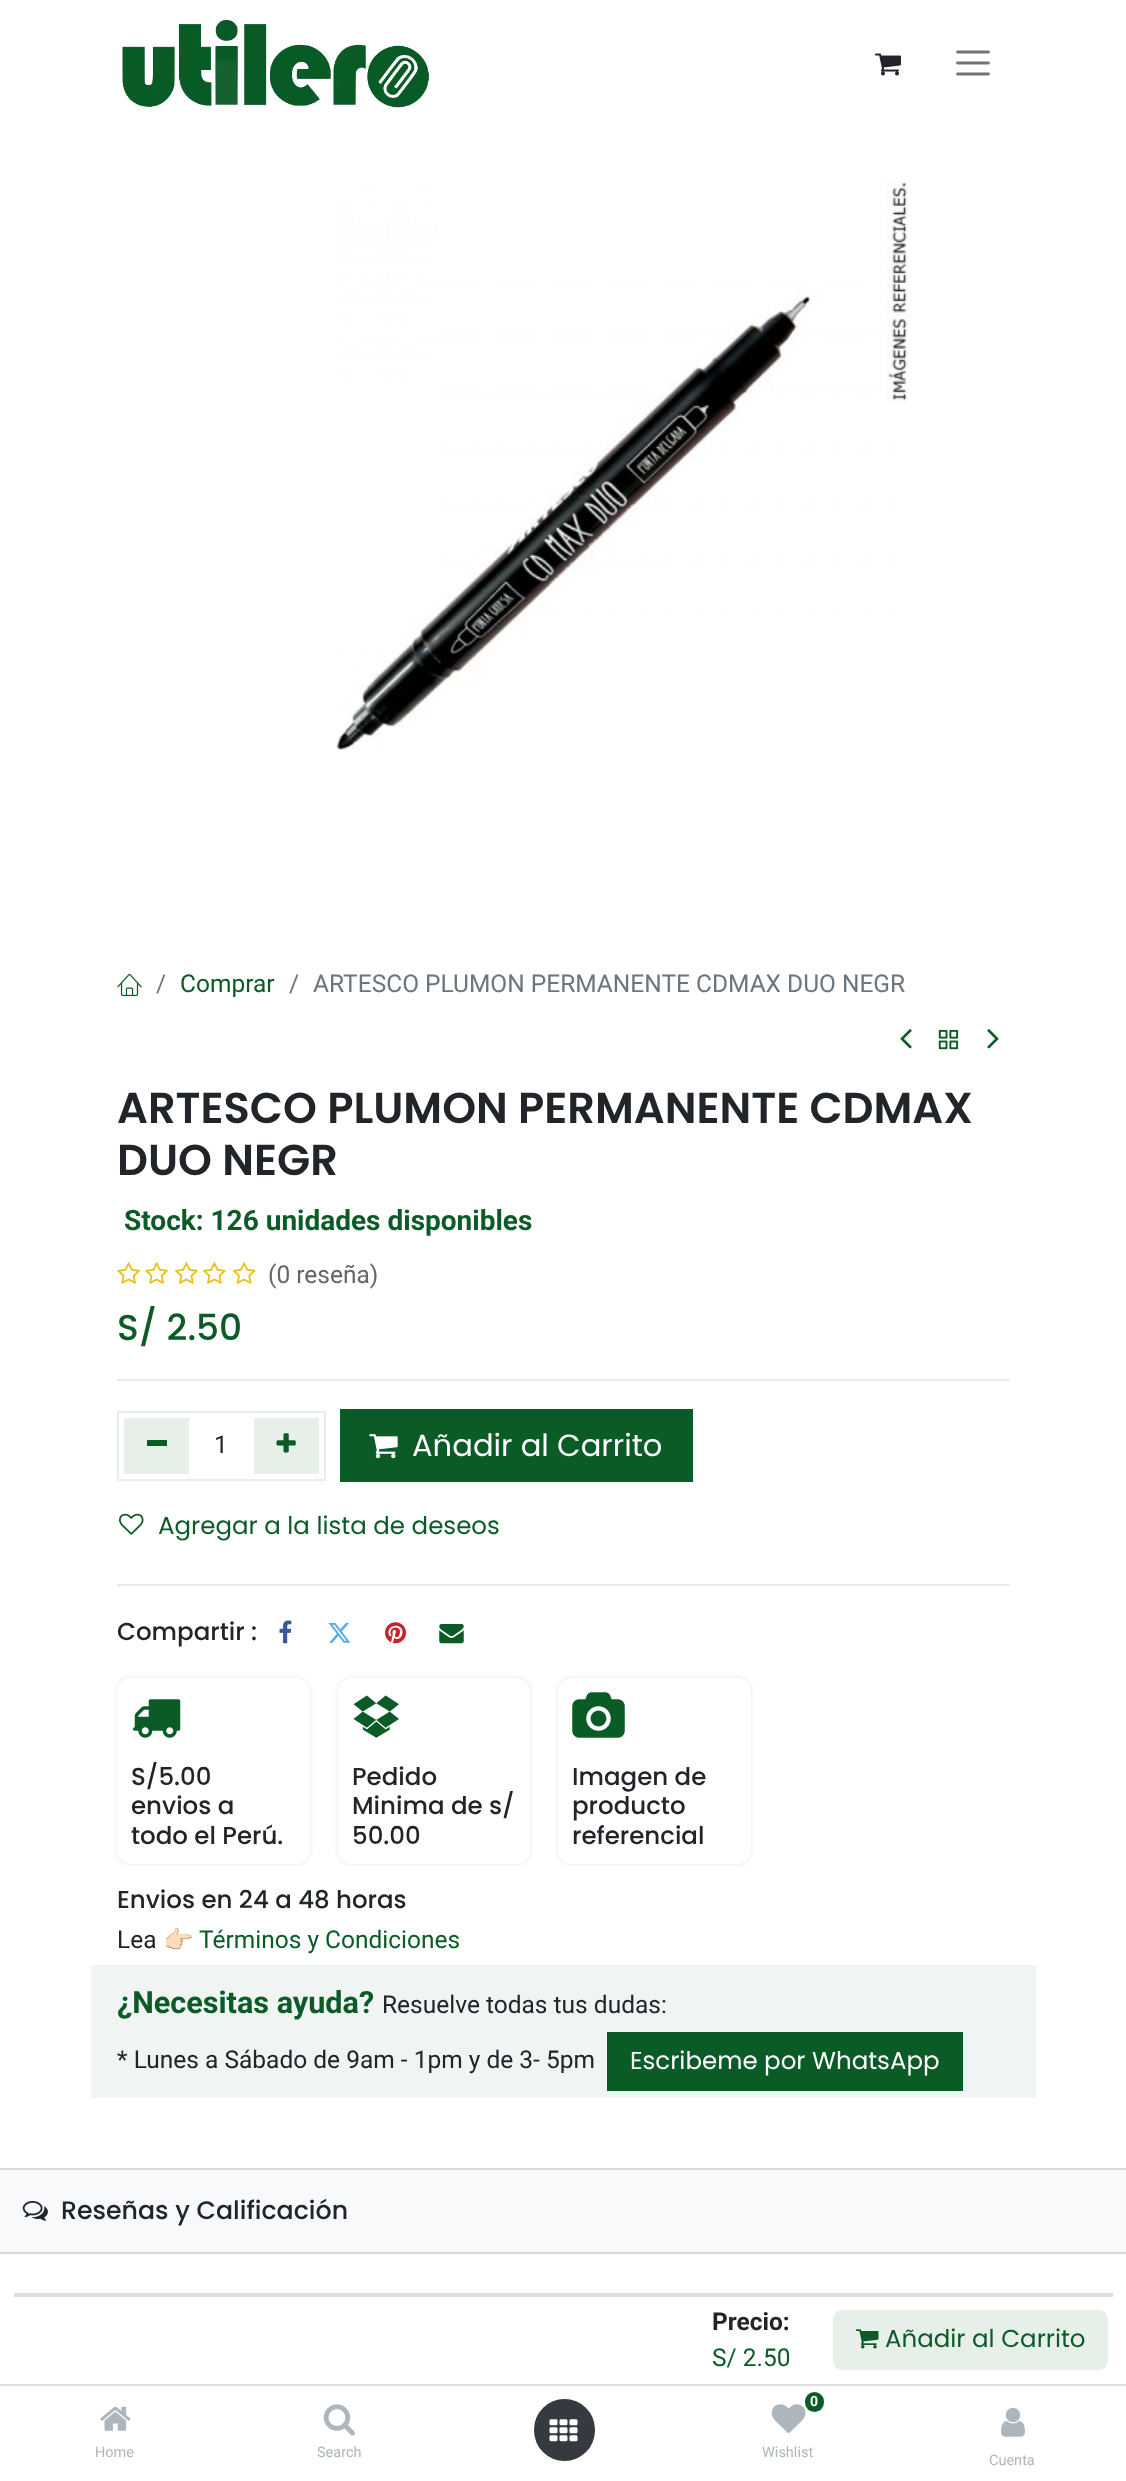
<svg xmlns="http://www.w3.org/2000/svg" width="1126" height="2481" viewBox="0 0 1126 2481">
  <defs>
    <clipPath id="clip1"><path d="M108 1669H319V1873H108ZM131 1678H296C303.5 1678 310 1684.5 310 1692V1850C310 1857.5 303.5 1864 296 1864H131C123.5 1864 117 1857.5 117 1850V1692C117 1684.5 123.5 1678 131 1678Z" clip-rule="evenodd"/></clipPath>
    <clipPath id="clip2"><path d="M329 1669H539V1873H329ZM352 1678H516C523.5 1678 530 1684.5 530 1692V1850C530 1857.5 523.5 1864 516 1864H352C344.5 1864 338 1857.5 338 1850V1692C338 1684.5 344.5 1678 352 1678Z" clip-rule="evenodd"/></clipPath>
    <clipPath id="clip3"><path d="M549 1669H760V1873H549ZM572 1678H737C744.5 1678 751 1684.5 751 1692V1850C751 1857.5 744.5 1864 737 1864H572C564.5 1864 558 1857.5 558 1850V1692C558 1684.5 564.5 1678 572 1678Z" clip-rule="evenodd"/></clipPath>
  </defs>
  <rect width="100%" height="100%" fill="rgb(255,255,255)"/>
  <image x="122" y="20" width="307" height="88" href="pic1.png"/>
  <image x="875" y="53" width="26" height="23" href="pic2.png"/>
  <path d="M957.5 52H988.5M957.5 63H988.5M957.5 74H988.5" fill="none" stroke="rgb(115,115,115)" stroke-width="2.8" stroke-linecap="round"/>
  <image x="336" y="180" width="572" height="571" href="pic3.png"/>
  <image x="117" y="973" width="25" height="24" href="pic4.png"/>
  <text x="156" y="992" font-family="Roboto" font-size="24.5" fill="rgb(108,117,125)">/</text>
  <text x="180" y="992" font-family="Roboto" font-size="24.5" fill="rgb(11,91,39)">Comprar</text>
  <g font-family="Roboto" font-size="24.5" fill="rgb(108,117,125)">
    <text x="289" y="992">/</text>
    <text x="313" y="992">ARTESCO PLUMON PERMANENTE CDMAX DUO NEGR</text>
  </g>
  <image x="900" y="1029" width="12" height="20" href="pic5.png"/>
  <image x="938" y="1029" width="21" height="21" href="pic6.png"/>
  <image x="987" y="1029" width="12" height="20" href="pic7.png"/>
  <g font-family="Poppins" font-size="43.2" font-weight="600" fill="rgb(33,37,41)">
    <text>
      <tspan x="117" y="1123">ARTESCO PLUMON PERMANENTE CDMAX</tspan>
      <tspan x="117" y="1175">DUO NEGR</tspan>
    </text>
  </g>
  <text x="124" y="1230" font-family="Roboto" font-size="28" font-weight="bold" fill="rgb(11,91,39)">Stock: 126 unidades disponibles</text>
  <image x="117" y="1262" width="23" height="22" href="pic8.png"/>
  <image x="145" y="1262" width="23" height="22" href="pic8.png"/>
  <image x="175" y="1262" width="23" height="22" href="pic9.png"/>
  <image x="203" y="1262" width="23" height="22" href="pic9.png"/>
  <image x="232" y="1262" width="24" height="22" href="pic10.png"/>
  <text x="268" y="1283" font-family="Roboto" font-size="24.5" fill="rgb(100,102,105)">(0 reseña)</text>
  <text x="117" y="1340" font-family="Poppins" font-size="36" font-weight="500" fill="rgb(11,91,39)">S/ 2.50</text>
  <rect x="117" y="1379" width="893" height="2" fill="rgb(233,234,234)"/>
  <rect x="118" y="1412" width="207" height="68" fill="none" stroke="rgb(233,236,239)" stroke-width="2"/>
  <rect x="124" y="1418" width="65" height="56" fill="rgb(231,239,233)"/>
  <rect x="147" y="1440" width="20" height="6" fill="rgb(11,91,39)"/>
  <text x="214" y="1453" font-family="Roboto" font-size="24.5" fill="rgb(33,37,41)">1</text>
  <rect x="254" y="1418" width="65" height="56" fill="rgb(231,239,233)"/>
  <image x="276" y="1433" width="20" height="20" href="pic11.png"/>
  <rect x="340" y="1409" width="353" height="73" fill="rgb(11,91,39)"/>
  <image x="369" y="1434" width="29" height="25" href="pic12.png"/>
  <text x="412" y="1456" font-family="Poppins" font-size="30.6" fill="rgb(255,255,255)">Añadir al Carrito</text>
  <image x="119" y="1513" width="25" height="22" href="pic13.png"/>
  <text x="158" y="1534" font-family="Poppins" font-size="24.5" fill="rgb(11,91,39)">Agregar a la lista de deseos</text>
  <rect x="117" y="1584" width="893" height="2" fill="rgb(233,234,234)"/>
  <text x="117" y="1640" font-family="Poppins" font-size="24.5" font-weight="500" fill="rgb(33,37,41)">Compartir :</text>
  <image x="279" y="1620" width="13" height="24" href="pic14.png"/>
  <image x="328" y="1623" width="23" height="20" href="pic15.png"/>
  <image x="385" y="1622" width="21" height="22" href="pic16.png"/>
  <image x="439" y="1624" width="25" height="20" href="pic17.png"/>
  <g clip-path="url(#clip1)">
    <rect x="117" y="1678" width="193" height="186" rx="14" fill="rgba(0,0,0,0.1)" filter="blur(2.5px)"/>
  </g>
  <image x="133" y="1699" width="48" height="39" href="pic18.png"/>
  <g font-family="Poppins" font-size="24.5" font-weight="500" fill="rgb(33,37,41)">
    <text>
      <tspan x="131" y="1785">S/5.00</tspan>
      <tspan x="131" y="1814">envios a</tspan>
      <tspan x="131" y="1844">todo el Perú.</tspan>
    </text>
  </g>
  <g clip-path="url(#clip2)">
    <rect x="338" y="1678" width="192" height="186" rx="14" fill="rgba(0,0,0,0.1)" filter="blur(2.5px)"/>
  </g>
  <image x="353" y="1695" width="46" height="43" href="pic19.png"/>
  <g font-family="Poppins" font-size="24.5" font-weight="500" fill="rgb(33,37,41)">
    <text>
      <tspan x="352" y="1785">Pedido</tspan>
      <tspan x="352" y="1814">Minima de s/</tspan>
      <tspan x="352" y="1844">50.00</tspan>
    </text>
  </g>
  <g clip-path="url(#clip3)">
    <rect x="558" y="1678" width="193" height="186" rx="14" fill="rgba(0,0,0,0.1)" filter="blur(2.5px)"/>
  </g>
  <image x="572" y="1692" width="53" height="46" href="pic20.png"/>
  <g font-family="Poppins" font-size="24.5" font-weight="500" fill="rgb(33,37,41)">
    <text>
      <tspan x="572" y="1785">Imagen de</tspan>
      <tspan x="572" y="1814">producto</tspan>
      <tspan x="572" y="1844">referencial</tspan>
    </text>
    <text x="117" y="1908">Envios en 24 a 48 horas</text>
  </g>
  <text x="117" y="1948" font-family="Roboto" font-size="24.5" fill="rgb(33,37,41)">Lea</text>
  <text x="163" y="1948" font-family="Noto Color Emoji" font-size="24.5" fill="rgb(33,37,41)">👉🏻</text>
  <text x="199" y="1948" font-family="Roboto" font-size="24.5" fill="rgb(11,91,39)">Términos y Condiciones</text>
  <rect x="91" y="1965" width="945" height="133" fill="rgb(240,245,244)"/>
  <text x="117" y="2013" font-family="Roboto" font-size="30.6" font-weight="bold" fill="rgb(11,91,39)">¿Necesitas ayuda?</text>
  <g font-family="Roboto" font-size="24.5" fill="rgb(33,37,41)">
    <text x="382" y="2013">Resuelve todas tus dudas:</text>
    <text x="117" y="2068">* Lunes a Sábado de 9am - 1pm y de 3- 5pm</text>
  </g>
  <rect x="607" y="2032" width="356" height="59" fill="rgb(11,91,39)"/>
  <text x="630" y="2069" font-family="Poppins" font-size="24.5" fill="rgb(255,255,255)">Escribeme por WhatsApp</text>
  <rect x="0" y="2170" width="1126" height="82" fill="rgb(248,249,250)"/>
  <rect x="0" y="2168" width="1126" height="2" fill="rgb(216,217,219)"/>
  <rect x="0" y="2252" width="1126" height="2" fill="rgb(216,217,219)"/>
  <image x="22" y="2201" width="26" height="20" href="pic21.png"/>
  <text x="61" y="2219" font-family="Poppins" font-size="25.25" font-weight="500" fill="rgb(33,37,41)">Reseñas y Calificación</text>
  <rect x="14" y="2293" width="1099" height="4" fill="rgb(222,222,223)"/>
  <rect x="0" y="2384" width="1126" height="2" fill="rgb(222,222,223)"/>
  <text x="712" y="2330" font-family="Roboto" font-size="24.5" font-weight="bold" fill="rgb(33,37,41)">Precio:</text>
  <text x="712" y="2366" font-family="Roboto" font-size="24.5" fill="rgb(11,91,39)">S/ 2.50</text>
  <rect x="833" y="2310" width="275" height="60" rx="9" fill="rgb(231,239,233)"/>
  <image x="855" y="2329" width="24" height="20" href="pic22.png"/>
  <text x="885" y="2347" font-family="Poppins" font-size="24.5" fill="rgb(11,91,39)">Añadir al Carrito</text>
  <image x="100" y="2406" width="31" height="25" href="pic23.png"/>
  <text x="95" y="2457" font-family="Roboto" font-size="14.5" fill="rgb(173,181,189)">Home</text>
  <image x="323" y="2404" width="32" height="32" href="pic24.png"/>
  <text x="317" y="2457" font-family="Roboto" font-size="14.5" fill="rgb(173,181,189)">Search</text>
  <rect x="534" y="2399" width="61" height="62" rx="30.5" fill="rgb(52,58,64)"/>
  <image x="549" y="2419" width="29" height="23" href="pic25.png"/>
  <image x="771" y="2404" width="35" height="30" href="pic26.png"/>
  <rect x="805" y="2392" width="19" height="20" rx="9.5" fill="rgb(11,91,39)"/>
  <text x="810" y="2406" font-family="Roboto" font-size="14" font-weight="bold" fill="rgb(255,255,255)">0</text>
  <text x="762" y="2457" font-family="Roboto" font-size="14.5" fill="rgb(173,181,189)">Wishlist</text>
  <image x="1001" y="2407" width="24" height="30" href="pic27.png"/>
  <text x="989" y="2465" font-family="Roboto" font-size="14.5" fill="rgb(173,181,189)">Cuenta</text>
</svg>
